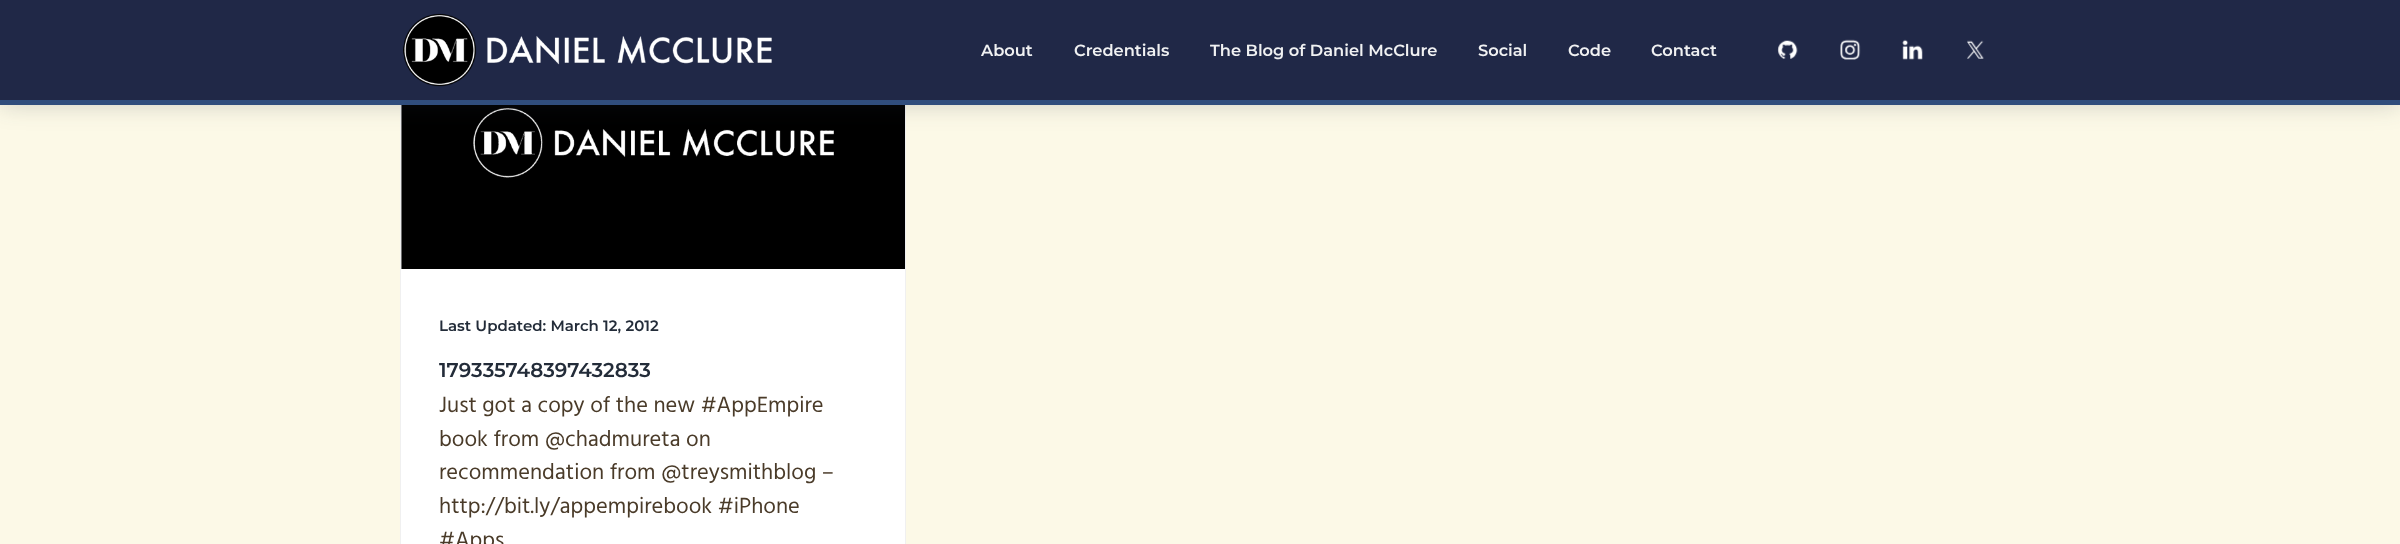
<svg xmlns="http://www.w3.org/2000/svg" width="2400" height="544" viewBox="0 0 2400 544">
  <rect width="100%" height="100%" fill="rgb(252,249,231)"/>
  <rect x="401" y="105" width="504" height="439" fill="rgb(255,255,255)"/>
  <rect x="400.5" y="15.5" width="505" height="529" fill="none" stroke="rgb(240,240,240)"/>
  <image x="401" y="105" width="504" height="164" href="pic6.png"/>
  <rect x="0" y="0" width="2400" height="105" fill="rgba(35,44,57,0.2)" filter="blur(12.5px)"/>
  <rect x="0" y="0" width="2400" height="100" fill="rgb(32,40,71)"/>
  <rect x="0" y="100" width="2400" height="5" fill="rgb(48,77,124)"/>
  <image x="403" y="13" width="369" height="74" href="pic1.png"/>
  <g font-family="Montserrat" font-size="16.25" font-weight="100" fill="rgb(240,241,242)">
    <text x="981" y="56">About</text>
    <text x="1074" y="56">Credentials</text>
    <text x="1210" y="56">The Blog of Daniel McClure</text>
    <text x="1478" y="56">Social</text>
    <text x="1568" y="56">Code</text>
    <text x="1651" y="56">Contact</text>
  </g>
  <image x="1777" y="40" width="21" height="19" href="pic2.png"/>
  <image x="1840" y="39" width="21" height="21" href="pic3.png"/>
  <image x="1902" y="39" width="21" height="21" href="pic4.png"/>
  <image x="1967" y="40" width="17" height="19" href="pic5.png"/>
  <text x="439" y="331" font-family="Montserrat" font-size="15" font-weight="100" fill="rgb(35,44,57)">Last Updated: March 12, 2012</text>
  <text x="439" y="377" font-family="Montserrat" font-size="20" font-weight="100" fill="rgb(35,44,57)">179335748397432833</text>
  <g font-family="Hind" font-size="22.5" fill="rgb(74,59,41)">
    <text>
      <tspan x="439" y="412">Just got a copy of the new #AppEmpire</tspan>
      <tspan x="439" y="446">book from @chadmureta on</tspan>
      <tspan x="439" y="479">recommendation from @treysmithblog –</tspan>
      <tspan x="439" y="513">http://bit.ly/appempirebook #iPhone</tspan>
      <tspan x="439" y="547">#Apps</tspan>
    </text>
  </g>
</svg>
